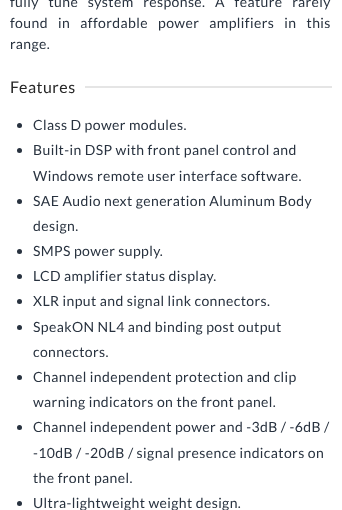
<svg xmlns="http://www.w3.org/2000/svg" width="342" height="510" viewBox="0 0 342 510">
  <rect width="100%" height="100%" fill="rgb(255,255,255)"/>
  <g font-family="Lato" font-size="14" letter-spacing="0.4" fill="rgb(40,50,63)">
    <text>
      <tspan x="10" y="7" word-spacing="6.5">fully tune system response. A feature rarely</tspan>
      <tspan x="10" y="28" word-spacing="7">found in affordable power amplifiers in this</tspan>
      <tspan x="10" y="49">range.</tspan>
    </text>
  </g>
  <text x="10" y="93" font-family="Lato" font-size="16" letter-spacing="0.5" fill="rgb(39,39,39)">Features</text>
  <rect x="85" y="86" width="247" height="2" fill="rgb(229,229,229)"/>
  <circle cx="19.5" cy="125.5" r="2.5" fill="rgb(40,50,63)"/>
  <text x="33" y="130" font-family="Lato" font-size="14" letter-spacing="0.4" fill="rgb(40,50,63)">Class D power modules.</text>
  <circle cx="19.5" cy="150.5" r="2.5" fill="rgb(40,50,63)"/>
  <g font-family="Lato" font-size="14" letter-spacing="0.4" fill="rgb(40,50,63)">
    <text>
      <tspan x="33" y="155">Built-in DSP with front panel control and</tspan>
      <tspan x="33" y="181">Windows remote user interface software.</tspan>
    </text>
  </g>
  <circle cx="19.5" cy="201.5" r="2.5" fill="rgb(40,50,63)"/>
  <g font-family="Lato" font-size="14" letter-spacing="0.4" fill="rgb(40,50,63)">
    <text>
      <tspan x="33" y="206">SAE Audio next generation Aluminum Body</tspan>
      <tspan x="33" y="231">design.</tspan>
    </text>
  </g>
  <circle cx="19.5" cy="251.5" r="2.5" fill="rgb(40,50,63)"/>
  <text x="33" y="256" font-family="Lato" font-size="14" letter-spacing="0.4" fill="rgb(40,50,63)">SMPS power supply.</text>
  <circle cx="19.5" cy="276.5" r="2.5" fill="rgb(40,50,63)"/>
  <text x="33" y="281" font-family="Lato" font-size="14" letter-spacing="0.4" fill="rgb(40,50,63)">LCD amplifier status display.</text>
  <circle cx="19.5" cy="301.5" r="2.5" fill="rgb(40,50,63)"/>
  <text x="33" y="306" font-family="Lato" font-size="14" letter-spacing="0.4" fill="rgb(40,50,63)">XLR input and signal link connectors.</text>
  <circle cx="19.5" cy="327.5" r="2.5" fill="rgb(40,50,63)"/>
  <g font-family="Lato" font-size="14" letter-spacing="0.4" fill="rgb(40,50,63)">
    <text>
      <tspan x="33" y="332">SpeakON NL4 and binding post output</tspan>
      <tspan x="33" y="357">connectors.</tspan>
    </text>
  </g>
  <circle cx="19.5" cy="377.5" r="2.5" fill="rgb(40,50,63)"/>
  <g font-family="Lato" font-size="14" letter-spacing="0.4" fill="rgb(40,50,63)">
    <text>
      <tspan x="33" y="382">Channel independent protection and clip</tspan>
      <tspan x="33" y="407">warning indicators on the front panel.</tspan>
    </text>
  </g>
  <circle cx="19.5" cy="427.5" r="2.5" fill="rgb(40,50,63)"/>
  <g font-family="Lato" font-size="14" letter-spacing="0.4" fill="rgb(40,50,63)">
    <text>
      <tspan x="33" y="432">Channel independent power and -3dB / -6dB /</tspan>
      <tspan x="33" y="458">-10dB / -20dB / signal presence indicators on</tspan>
      <tspan x="33" y="483">the front panel.</tspan>
    </text>
  </g>
  <circle cx="19.5" cy="503.5" r="2.5" fill="rgb(40,50,63)"/>
  <text x="33" y="508" font-family="Lato" font-size="14" letter-spacing="0.4" fill="rgb(40,50,63)">Ultra-lightweight weight design.</text>
</svg>
